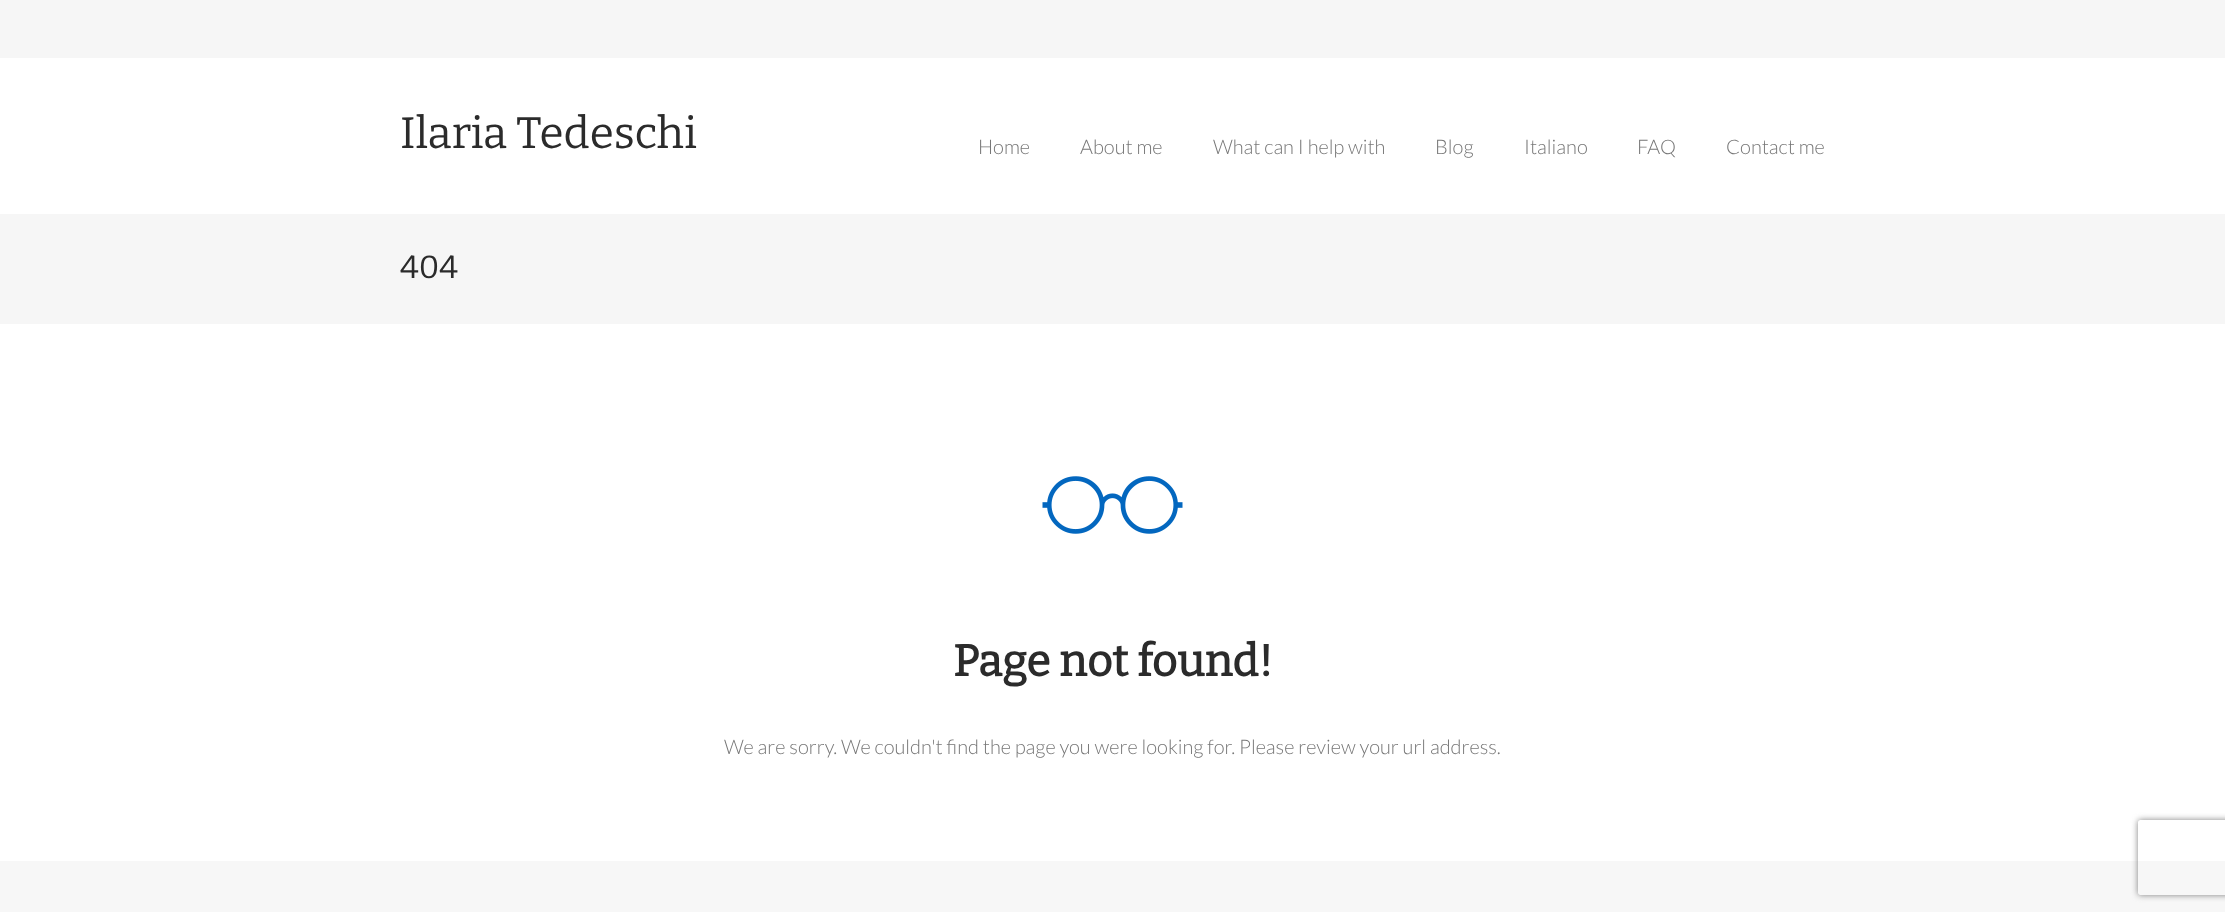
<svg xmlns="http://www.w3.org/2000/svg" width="2225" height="912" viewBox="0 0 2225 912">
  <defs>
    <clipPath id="clip1"><path d="M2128 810H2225V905H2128ZM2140.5 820H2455.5C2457 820 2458 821 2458 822.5V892.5C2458 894 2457 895 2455.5 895H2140.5C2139 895 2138 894 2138 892.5V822.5C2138 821 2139 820 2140.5 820Z" clip-rule="evenodd"/></clipPath>
  </defs>
  <rect width="100%" height="100%" fill="rgb(255,255,255)"/>
  <rect x="0" y="0" width="2225" height="58" fill="rgb(246,246,246)"/>
  <text x="400" y="148" font-family="Bitter" font-size="44" font-weight="100" fill="rgb(43,43,43)">Ilaria Tedeschi</text>
  <g font-family="Lato" font-size="20" font-weight="300" fill="rgb(119,119,119)">
    <text x="978" y="154">Home</text>
    <text x="1080" y="154">About me</text>
    <text x="1213" y="154">What can I help with</text>
    <text x="1435" y="154">Blog</text>
    <text x="1524" y="154">Italiano</text>
    <text x="1637" y="154">FAQ</text>
    <text x="1726" y="154">Contact me</text>
  </g>
  <rect x="0" y="214" width="2225" height="110" fill="rgb(246,246,246)"/>
  <text x="400" y="278" font-family="Bitter" font-size="32" font-weight="100" fill="rgb(43,43,43)">404</text>
  <image x="1042" y="476" width="141" height="58" href="pic1.png"/>
  <text x="953" y="676" font-family="Bitter" font-size="44" font-weight="bold" fill="rgb(43,43,43)">Page not found!</text>
  <text x="724" y="754" font-family="Lato" font-size="20" font-weight="300" fill="rgb(119,119,119)">We are sorry. We couldn't find the page you were looking for. Please review your url address.</text>
  <rect x="0" y="861" width="2225" height="51" fill="rgb(247,247,247)"/>
  <g clip-path="url(#clip1)">
    <rect x="2138" y="820" width="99" height="75" rx="2.5" fill="rgb(128,128,128)" filter="blur(3px)"/>
  </g>
</svg>
